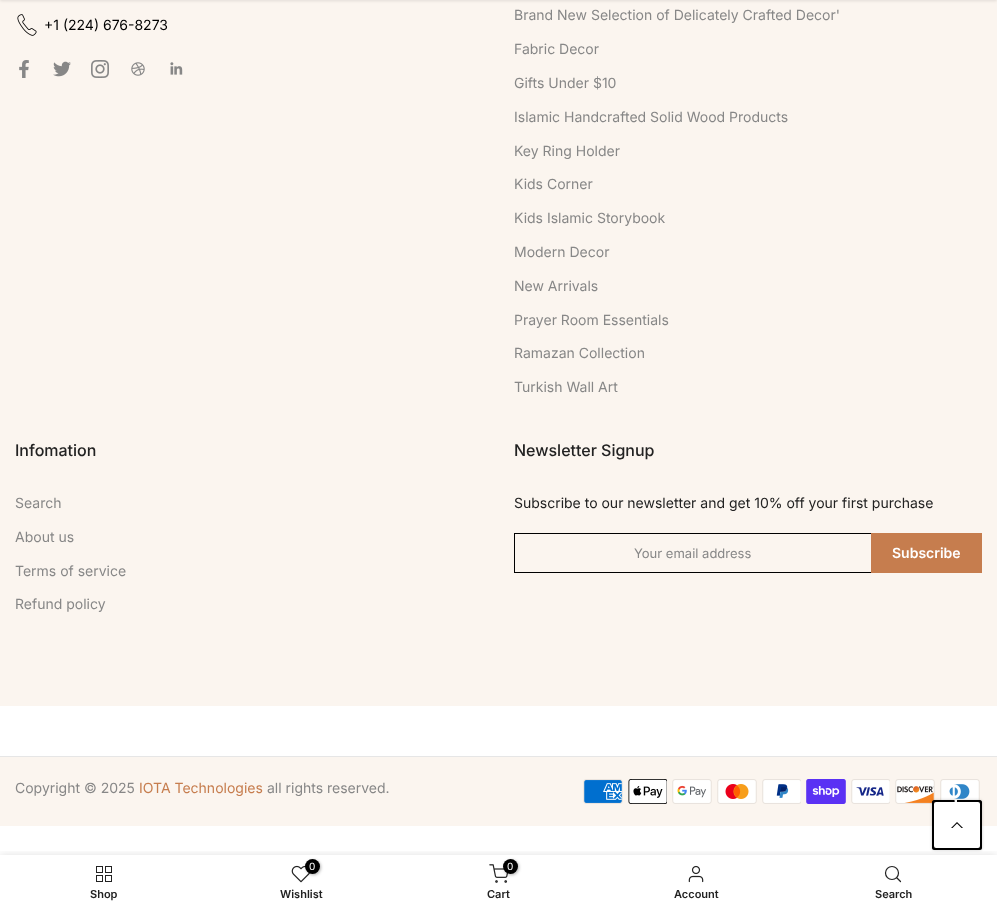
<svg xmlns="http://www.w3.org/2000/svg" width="997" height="910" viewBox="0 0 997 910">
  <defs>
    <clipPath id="clip1"><rect x="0" y="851" width="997" height="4"/></clipPath>
  </defs>
  <rect width="100%" height="100%" fill="rgb(255,255,255)"/>
  <rect x="0" y="0" width="997" height="706" fill="rgb(251,245,239)"/>
  <rect x="0" y="-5" width="997" height="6" fill="rgba(0,0,0,0.1)" filter="blur(1.5px)"/>
  <image x="17" y="14" width="20" height="22" href="pic1.png"/>
  <text x="44" y="30" font-family="Inter" font-size="14" fill="rgb(0,0,0)">+1 (224) 676-8273</text>
  <image x="19" y="60" width="10" height="18" href="pic2.png"/>
  <image x="53" y="61" width="18" height="16" href="pic3.png"/>
  <image x="91" y="60" width="18" height="18" href="pic4.png"/>
  <image x="131" y="62" width="14" height="14" href="pic5.png"/>
  <image x="170" y="62" width="13" height="13" href="pic6.png"/>
  <g font-family="Inter" font-size="14" fill="rgb(135,135,135)">
    <text x="514" y="20">Brand New Selection of Delicately Crafted Decor'</text>
    <text x="514" y="54">Fabric Decor</text>
    <text x="514" y="88">Gifts Under $10</text>
    <text x="514" y="122">Islamic Handcrafted Solid Wood Products</text>
    <text x="514" y="156">Key Ring Holder</text>
    <text x="514" y="189">Kids Corner</text>
    <text x="514" y="223">Kids Islamic Storybook</text>
    <text x="514" y="257">Modern Decor</text>
    <text x="514" y="291">New Arrivals</text>
    <text x="514" y="325">Prayer Room Essentials</text>
    <text x="514" y="358">Ramazan Collection</text>
    <text x="514" y="392">Turkish Wall Art</text>
  </g>
  <text x="15" y="456" font-family="Inter" font-size="16" font-weight="500" fill="rgb(34,34,34)">Infomation</text>
  <g font-family="Inter" font-size="14" fill="rgb(135,135,135)">
    <text x="15" y="508">Search</text>
    <text x="15" y="542">About us</text>
    <text x="15" y="576">Terms of service</text>
    <text x="15" y="609">Refund policy</text>
  </g>
  <text x="514" y="456" font-family="Inter" font-size="16" font-weight="500" fill="rgb(34,34,34)">Newsletter Signup</text>
  <text x="514" y="508" font-family="Inter" font-size="14" fill="rgb(34,34,34)">Subscribe to our newsletter and get 10% off your first purchase</text>
  <rect x="514" y="533" width="357" height="1" fill="rgb(0,0,0)"/>
  <rect x="514" y="572" width="357" height="1" fill="rgb(0,0,0)"/>
  <rect x="514" y="533" width="1" height="40" fill="rgb(0,0,0)"/>
  <text x="634" y="558" font-family="Inter" font-size="13" fill="rgb(135,135,135)">Your email address</text>
  <rect x="871" y="533" width="111" height="40" fill="rgb(198,125,78)"/>
  <text x="892" y="558" font-family="Inter" font-size="14" font-weight="600" fill="rgb(255,255,255)">Subscribe</text>
  <rect x="0" y="757" width="997" height="69" fill="rgb(251,245,239)"/>
  <rect x="0" y="756" width="997" height="1" fill="rgb(230,230,230)"/>
  <text x="15" y="793" font-family="Inter" font-size="14" fill="rgb(135,135,135)">Copyright © 2025</text>
  <text x="139" y="793" font-family="Inter" font-size="14" fill="rgb(198,125,78)">IOTA Technologies</text>
  <text x="267" y="793" font-family="Inter" font-size="14" fill="rgb(135,135,135)">all rights reserved.</text>
  <image x="583" y="779" width="40" height="25" href="pic7.png"/>
  <image x="628" y="779" width="39" height="25" href="pic8.png"/>
  <image x="672" y="779" width="40" height="25" href="pic9.png"/>
  <image x="717" y="779" width="40" height="25" href="pic10.png"/>
  <image x="762" y="779" width="39" height="25" href="pic11.png"/>
  <image x="806" y="779" width="40" height="25" href="pic12.png"/>
  <image x="851" y="779" width="39" height="25" href="pic13.png"/>
  <image x="895" y="779" width="40" height="25" href="pic14.png"/>
  <image x="940" y="779" width="40" height="21" href="pic15.png"/>
  <rect x="932" y="800" width="50" height="50" rx="3" fill="rgba(0,0,0,0.2)" filter="blur(1.5px)"/>
  <g clip-path="url(#clip1)">
    <rect x="0" y="855" width="997" height="55" fill="rgba(0,0,0,0.12)" filter="blur(4.5px)"/>
  </g>
  <path d="M957 825L955 800H934C933 800 932 801 932 802V848C932 849 933 850 934 850H980C981 850 982 849 982 848V802C982 801 981 800 980 800H957Z" fill="rgb(0,0,0)"/>
  <path d="M957 825V800H954.5Z" fill="rgb(245,245,245)"/>
  <rect x="934" y="802" width="46" height="46" rx="2" fill="rgb(255,255,255)"/>
  <image x="951" y="822" width="12" height="6" href="pic16.png"/>
  <image x="96" y="866" width="16" height="16" href="pic17.png"/>
  <text x="90" y="898" font-family="Inter" font-size="11" font-weight="600" fill="rgb(34,34,34)">Shop</text>
  <image x="291" y="865" width="19" height="18" href="pic18.png"/>
  <rect x="306" y="860" width="15" height="15" rx="7.5" fill="rgba(0,0,0,0.3)" filter="blur(1.5px)"/>
  <circle cx="312.5" cy="866.5" r="7.5" fill="rgb(0,0,0)"/>
  <text x="309" y="870" font-family="Inter" font-size="10" fill="rgb(255,255,255)">0</text>
  <text x="280" y="898" font-family="Inter" font-size="11" font-weight="600" fill="rgb(34,34,34)">Wishlist</text>
  <image x="489" y="864" width="19" height="19" href="pic19.png"/>
  <rect x="504" y="860" width="15" height="15" rx="7.5" fill="rgba(0,0,0,0.3)" filter="blur(1.5px)"/>
  <circle cx="510.5" cy="866.5" r="7.5" fill="rgb(0,0,0)"/>
  <text x="507" y="870" font-family="Inter" font-size="10" fill="rgb(255,255,255)">0</text>
  <text x="487" y="898" font-family="Inter" font-size="11" font-weight="600" fill="rgb(34,34,34)">Cart</text>
  <image x="688" y="865" width="16" height="18" href="pic20.png"/>
  <text x="674" y="898" font-family="Inter" font-size="11" font-weight="600" fill="rgb(34,34,34)">Account</text>
  <circle cx="892" cy="873" r="6.5" fill="none" stroke="rgb(34,34,34)" stroke-width="1.2"/>
  <path d="M900.5 881.5L897 878" fill="none" stroke="rgb(34,34,34)" stroke-width="1.2" stroke-linecap="round" stroke-linejoin="round"/>
  <text x="875" y="898" font-family="Inter" font-size="11" font-weight="600" fill="rgb(34,34,34)">Search</text>
</svg>
